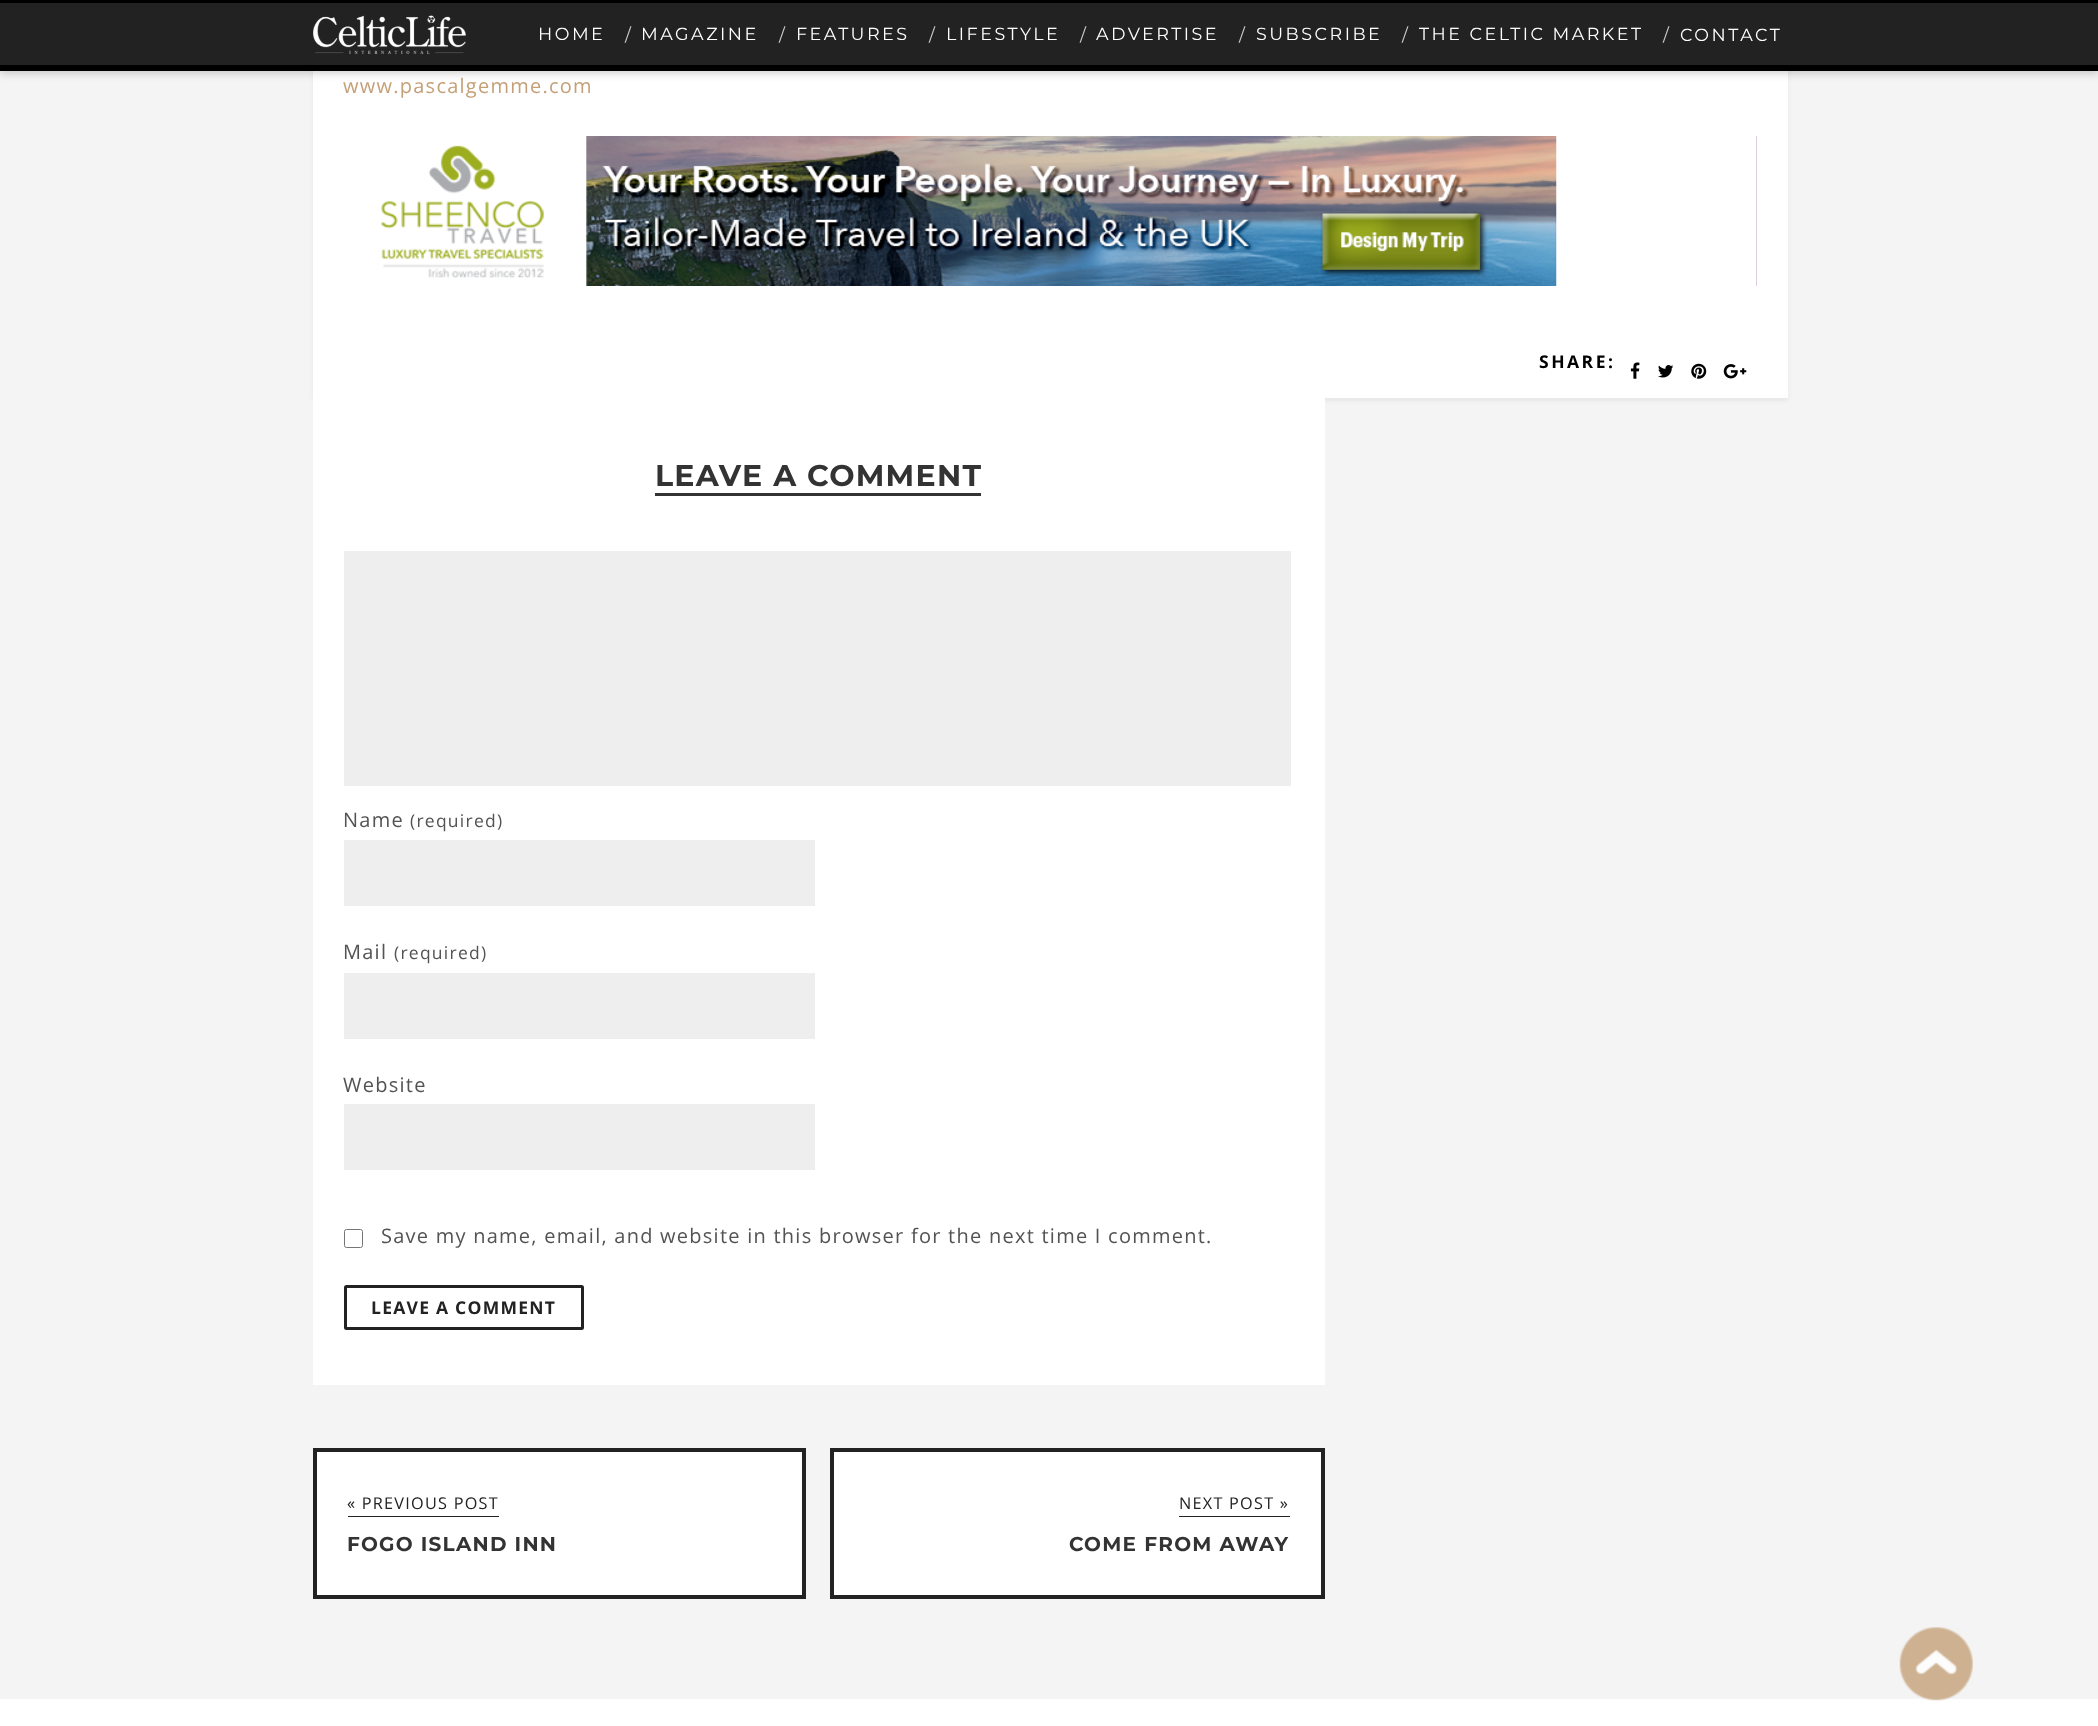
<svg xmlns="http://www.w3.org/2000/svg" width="2098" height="1726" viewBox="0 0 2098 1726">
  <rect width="100%" height="100%" fill="rgb(244,244,244)"/>
  <rect x="313" y="-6" width="1475" height="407" fill="rgba(0,0,0,0.05)" filter="blur(2px)"/>
  <rect x="313" y="71" width="1475" height="327" fill="rgb(255,255,255)"/>
  <rect x="0" y="1" width="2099" height="72" fill="rgba(0,0,0,0.2)" filter="blur(4.5px)"/>
  <rect x="0" y="3" width="2098" height="62" fill="rgb(34,34,34)"/>
  <rect x="0" y="0" width="2098" height="3" fill="rgb(0,0,0)"/>
  <rect x="0" y="65" width="2098" height="6" fill="rgb(0,0,0)"/>
  <image x="313" y="15" width="153" height="40" href="pic1.png"/>
  <text x="538" y="40" font-family="Montserrat" font-size="17.5" letter-spacing="2.5" fill="rgb(255,255,255)">HOME</text>
  <text x="625" y="41" font-family="Montserrat" font-size="17.5" letter-spacing="2.5" fill="rgb(204,204,204)">/</text>
  <text x="641" y="40" font-family="Montserrat" font-size="17.5" letter-spacing="2.5" fill="rgb(255,255,255)">MAGAZINE</text>
  <text x="779" y="41" font-family="Montserrat" font-size="17.5" letter-spacing="2.5" fill="rgb(204,204,204)">/</text>
  <text x="796" y="40" font-family="Montserrat" font-size="17.5" letter-spacing="2.5" fill="rgb(255,255,255)">FEATURES</text>
  <text x="929" y="41" font-family="Montserrat" font-size="17.5" letter-spacing="2.5" fill="rgb(204,204,204)">/</text>
  <text x="946" y="40" font-family="Montserrat" font-size="17.5" letter-spacing="2.5" fill="rgb(255,255,255)">LIFESTYLE</text>
  <text x="1080" y="41" font-family="Montserrat" font-size="17.5" letter-spacing="2.5" fill="rgb(204,204,204)">/</text>
  <text x="1096" y="40" font-family="Montserrat" font-size="17.5" letter-spacing="2.5" fill="rgb(255,255,255)">ADVERTISE</text>
  <text x="1239" y="41" font-family="Montserrat" font-size="17.5" letter-spacing="2.5" fill="rgb(204,204,204)">/</text>
  <text x="1256" y="40" font-family="Montserrat" font-size="17.5" letter-spacing="2.5" fill="rgb(255,255,255)">SUBSCRIBE</text>
  <text x="1402" y="41" font-family="Montserrat" font-size="17.5" letter-spacing="2.5" fill="rgb(204,204,204)">/</text>
  <text x="1419" y="40" font-family="Montserrat" font-size="17.5" letter-spacing="2.5" fill="rgb(255,255,255)">THE CELTIC MARKET</text>
  <text x="1663" y="41" font-family="Montserrat" font-size="17.5" letter-spacing="2.5" fill="rgb(204,204,204)">/</text>
  <text x="1680" y="41" font-family="Montserrat" font-size="17.5" letter-spacing="2.5" fill="rgb(255,255,255)">CONTACT</text>
  <text x="343" y="93" font-family="Open Sans" font-size="20" letter-spacing="1.25" fill="rgb(196,160,120)">www.pascalgemme.com</text>
  <image x="381" y="136" width="1176" height="150" href="pic2.png"/>
  <rect x="1756" y="136" width="1" height="150" fill="rgb(220,208,223)"/>
  <text x="1539" y="368" font-family="Open Sans" font-size="17.5" font-weight="bold" letter-spacing="2.5" fill="rgb(0,0,0)">SHARE:</text>
  <image x="1630" y="362" width="10" height="17" href="pic3.png"/>
  <image x="1658" y="365" width="16" height="13" href="pic4.png"/>
  <image x="1691" y="363" width="16" height="16" href="pic5.png"/>
  <image x="1723" y="364" width="24" height="15" href="pic6.png"/>
  <rect x="313" y="398" width="1012" height="987" fill="rgb(255,255,255)"/>
  <rect x="655" y="493" width="326" height="3" fill="rgb(51,51,51)"/>
  <text x="655" y="486" font-family="Montserrat" font-size="30" font-weight="bold" letter-spacing="1.25" fill="rgb(51,51,51)">LEAVE A COMMENT</text>
  <rect x="344" y="551" width="947" height="235" fill="rgb(238,238,238)"/>
  <text x="343" y="827" font-family="Open Sans" font-size="20" letter-spacing="1.25" fill="rgb(82,84,82)">Name</text>
  <text x="410" y="827" font-family="Open Sans" font-size="17.5" letter-spacing="1.25" fill="rgb(82,84,82)">(required)</text>
  <rect x="344" y="840" width="471" height="66" fill="rgb(238,238,238)"/>
  <text x="343" y="959" font-family="Open Sans" font-size="20" letter-spacing="1.25" fill="rgb(82,84,82)">Mail</text>
  <text x="394" y="959" font-family="Open Sans" font-size="17.5" letter-spacing="1.25" fill="rgb(82,84,82)">(required)</text>
  <rect x="344" y="973" width="471" height="66" fill="rgb(238,238,238)"/>
  <text x="343" y="1092" font-family="Open Sans" font-size="20" letter-spacing="1.25" fill="rgb(82,84,82)">Website</text>
  <rect x="344" y="1104" width="471" height="66" fill="rgb(238,238,238)"/>
  <rect x="344.5" y="1229.5" width="18" height="18" rx="2" fill="none" stroke="rgb(118,118,118)"/>
  <text x="381" y="1243" font-family="Open Sans" font-size="20" letter-spacing="1.25" fill="rgb(82,84,82)">Save my name, email, and website in this browser for the next time I comment.</text>
  <rect x="345.5" y="1286.5" width="237" height="42" rx="1" fill="none" stroke="rgb(34,34,34)" stroke-width="3"/>
  <text x="371" y="1314" font-family="Open Sans" font-size="17.5" font-weight="bold" letter-spacing="1.25" fill="rgb(34,34,34)">LEAVE A COMMENT</text>
  <rect x="315" y="1450" width="489" height="147" fill="rgb(255,255,255)" stroke="rgb(34,34,34)" stroke-width="4"/>
  <rect x="348" y="1516" width="151" height="1" fill="rgb(34,34,34)"/>
  <text x="347" y="1509" font-family="Open Sans" font-size="16.25" letter-spacing="1.25" fill="rgb(34,34,34)">« PREVIOUS POST</text>
  <text x="347" y="1551" font-family="Montserrat" font-size="20" font-weight="bold" letter-spacing="1.25" fill="rgb(51,51,51)">FOGO ISLAND INN</text>
  <rect x="832" y="1450" width="491" height="147" fill="rgb(255,255,255)" stroke="rgb(34,34,34)" stroke-width="4"/>
  <rect x="1179" y="1516" width="111" height="1" fill="rgb(34,34,34)"/>
  <text x="1179" y="1509" font-family="Open Sans" font-size="16.25" letter-spacing="1.25" fill="rgb(34,34,34)">NEXT POST »</text>
  <text x="1069" y="1551" font-family="Montserrat" font-size="20" font-weight="bold" letter-spacing="1.25" fill="rgb(51,51,51)">COME FROM AWAY</text>
  <rect x="0" y="1699" width="2098" height="27" fill="rgb(255,255,255)"/>
  <image x="1899" y="1627" width="74" height="74" href="pic7.png"/>
</svg>
